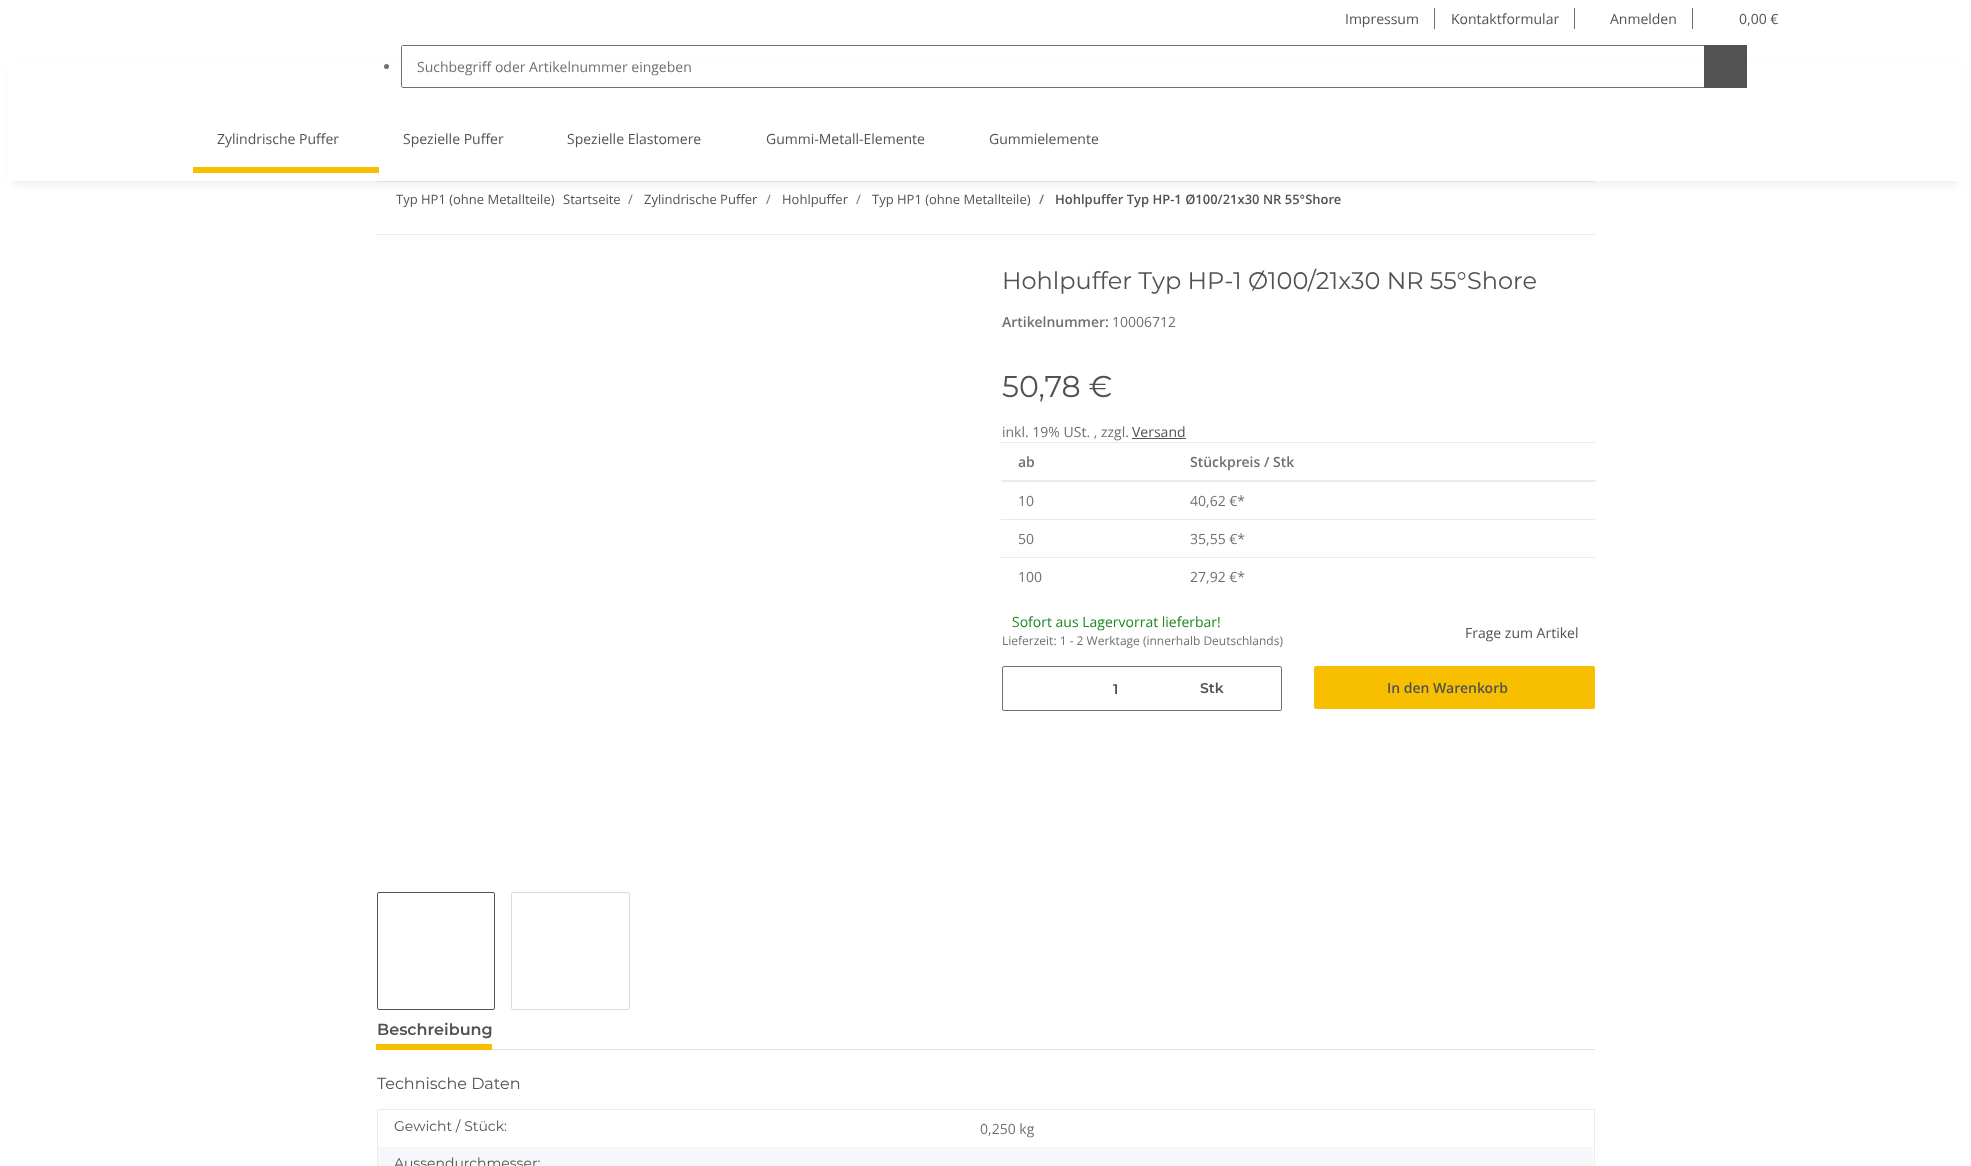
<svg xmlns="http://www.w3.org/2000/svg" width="1971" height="1166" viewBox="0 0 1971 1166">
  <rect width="100%" height="100%" fill="rgb(255,255,255)"/>
  <text x="1345" y="24" font-family="Open Sans" font-size="14" fill="rgb(82,82,82)">Impressum</text>
  <rect x="1434" y="8" width="1" height="21" fill="rgb(112,112,112)"/>
  <text x="1451" y="24" font-family="Open Sans" font-size="14" fill="rgb(82,82,82)">Kontaktformular</text>
  <rect x="1574" y="8" width="1" height="21" fill="rgb(112,112,112)"/>
  <text x="1610" y="24" font-family="Open Sans" font-size="14" fill="rgb(82,82,82)">Anmelden</text>
  <rect x="1692" y="8" width="1" height="21" fill="rgb(112,112,112)"/>
  <text x="1739" y="24" font-family="Open Sans" font-size="14" fill="rgb(82,82,82)">0,00 €</text>
  <rect x="377" y="181" width="1218" height="1" fill="rgb(235,235,235)"/>
  <rect x="12" y="65" width="1947" height="120" fill="rgba(0,0,0,0.06)" filter="blur(4.5px)"/>
  <rect x="8" y="61" width="1955" height="120" fill="rgb(255,255,255)"/>
  <circle cx="386.5" cy="66.5" r="2.5" fill="rgb(112,112,112)"/>
  <path d="M403 45.5H1704.5V87.5H403C402 87.5 401.5 87 401.5 86V47C401.5 46 402 45.5 403 45.5Z" fill="none" stroke="rgb(112,112,112)"/>
  <text x="417" y="72" font-family="Open Sans" font-size="14" fill="rgb(112,112,112)">Suchbegriff oder Artikelnummer eingeben</text>
  <rect x="1704" y="45" width="43" height="43" fill="rgb(82,82,82)"/>
  <text x="217" y="144" font-family="Open Sans" font-size="14" fill="rgb(82,82,82)">Zylindrische Puffer</text>
  <rect x="193" y="167" width="186" height="6" fill="rgb(248,191,0)"/>
  <g font-family="Open Sans" font-size="14" fill="rgb(82,82,82)">
    <text x="403" y="144">Spezielle Puffer</text>
    <text x="567" y="144">Spezielle Elastomere</text>
    <text x="766" y="144">Gummi-Metall-Elemente</text>
    <text x="989" y="144">Gummielemente</text>
  </g>
  <rect x="377" y="234" width="1218" height="1" fill="rgb(235,235,235)"/>
  <g font-family="Open Sans" font-size="13" fill="rgb(82,82,82)">
    <text x="396" y="204">Typ HP1 (ohne Metallteile)</text>
    <text x="563" y="204">Startseite</text>
  </g>
  <text x="628" y="204" font-family="Open Sans" font-size="13" fill="rgb(112,112,112)">/</text>
  <text x="644" y="204" font-family="Open Sans" font-size="13" fill="rgb(82,82,82)">Zylindrische Puffer</text>
  <text x="766" y="204" font-family="Open Sans" font-size="13" fill="rgb(112,112,112)">/</text>
  <text x="782" y="204" font-family="Open Sans" font-size="13" fill="rgb(82,82,82)">Hohlpuffer</text>
  <text x="856" y="204" font-family="Open Sans" font-size="13" fill="rgb(112,112,112)">/</text>
  <text x="872" y="204" font-family="Open Sans" font-size="13" fill="rgb(82,82,82)">Typ HP1 (ohne Metallteile)</text>
  <text x="1039" y="204" font-family="Open Sans" font-size="13" font-weight="600" fill="rgb(112,112,112)">/</text>
  <text x="1055" y="204" font-family="Open Sans" font-size="13" font-weight="600" fill="rgb(82,82,82)">Hohlpuffer Typ HP-1 Ø100/21x30 NR 55°Shore</text>
  <text x="1002" y="289" font-family="Montserrat" font-size="24" fill="rgb(82,82,82)">Hohlpuffer Typ HP-1 Ø100/21x30 NR 55°Shore</text>
  <text x="1002" y="327" font-family="Open Sans" font-size="14" font-weight="600" fill="rgb(112,112,112)">Artikelnummer:</text>
  <text x="1112" y="327" font-family="Open Sans" font-size="14" fill="rgb(112,112,112)">10006712</text>
  <text x="1002" y="397" font-family="Montserrat" font-size="30" fill="rgb(82,82,82)">50,78 €</text>
  <text x="1002" y="437" font-family="Open Sans" font-size="14" fill="rgb(112,112,112)">inkl. 19% USt. , zzgl.</text>
  <text x="1132" y="437" font-family="Open Sans" font-size="14" fill="rgb(82,82,82)">Versand</text>
  <rect x="1132" y="438" width="54" height="1" fill="rgb(82,82,82)"/>
  <text x="1018" y="467" font-family="Open Sans" font-size="14" font-weight="600" fill="rgb(112,112,112)">ab</text>
  <rect x="1001" y="442" width="594" height="1" fill="rgb(235,235,235)"/>
  <rect x="1001" y="480" width="595" height="2" fill="rgb(235,235,235)"/>
  <text x="1190" y="467" font-family="Open Sans" font-size="14" font-weight="600" fill="rgb(112,112,112)">Stückpreis / Stk</text>
  <g font-family="Open Sans" font-size="14" fill="rgb(112,112,112)">
    <text x="1018" y="506">10</text>
    <text x="1190" y="506">40,62 €*</text>
    <text x="1018" y="544">50</text>
  </g>
  <rect x="1001" y="519" width="594" height="1" fill="rgb(235,235,235)"/>
  <g font-family="Open Sans" font-size="14" fill="rgb(112,112,112)">
    <text x="1190" y="544">35,55 €*</text>
    <text x="1018" y="582">100</text>
  </g>
  <rect x="1001" y="557" width="594" height="1" fill="rgb(235,235,235)"/>
  <text x="1190" y="582" font-family="Open Sans" font-size="14" fill="rgb(112,112,112)">27,92 €*</text>
  <text x="1012" y="627" font-family="Open Sans" font-size="14" fill="rgb(28,135,30)">Sofort aus Lagervorrat lieferbar!</text>
  <text x="1002" y="645" font-family="Open Sans" font-size="12" fill="rgb(112,112,112)">Lieferzeit: 1 - 2 Werktage (innerhalb Deutschlands)</text>
  <text x="1465" y="638" font-family="Open Sans" font-size="14" fill="rgb(82,82,82)">Frage zum Artikel</text>
  <rect x="1002.5" y="666.5" width="279" height="44" rx="1.5" fill="none" stroke="rgb(112,112,112)"/>
  <g font-family="Montserrat" font-size="14" font-weight="600" fill="rgb(82,82,82)">
    <text x="1113" y="694">1</text>
    <text x="1200" y="693">Stk</text>
  </g>
  <rect x="1314.5" y="666.5" width="280" height="42" rx="1.5" fill="rgb(248,191,0)" stroke="rgb(248,191,0)"/>
  <text x="1387" y="693" font-family="Open Sans" font-size="14" font-weight="600" fill="rgb(82,82,82)">In den Warenkorb</text>
  <rect x="377.5" y="892.5" width="117" height="117" rx="1.5" fill="none" stroke="rgb(82,82,82)"/>
  <rect x="511.5" y="892.5" width="118" height="117" rx="1.5" fill="none" stroke="rgb(220,220,220)"/>
  <rect x="492" y="1049" width="1103" height="1" fill="rgb(222,226,230)"/>
  <text x="377" y="1035" font-family="Montserrat" font-size="16" font-weight="600" fill="rgb(82,82,82)">Beschreibung</text>
  <rect x="376" y="1044" width="116" height="6" fill="rgb(248,191,0)"/>
  <text x="377" y="1089" font-family="Montserrat" font-size="16" fill="rgb(82,82,82)">Technische Daten</text>
  <rect x="377" y="1109" width="1218" height="1" fill="rgb(235,235,235)"/>
  <rect x="1594" y="1147" width="1" height="19" fill="rgb(235,235,235)"/>
  <rect x="1594" y="1109" width="1" height="39" fill="rgb(235,235,235)"/>
  <rect x="377" y="1147" width="1" height="19" fill="rgb(235,235,235)"/>
  <rect x="377" y="1109" width="1" height="39" fill="rgb(235,235,235)"/>
  <text x="394" y="1131" font-family="Montserrat" font-size="14" fill="rgb(82,82,82)">Gewicht / Stück:</text>
  <text x="980" y="1134" font-family="Open Sans" font-size="14" fill="rgb(112,112,112)">0,250 kg</text>
  <rect x="378" y="1147" width="1215" height="19" fill="rgb(245,247,250)"/>
  <text x="394" y="1168" font-family="Montserrat" font-size="14" fill="rgb(82,82,82)">Aussendurchmesser:</text>
</svg>
